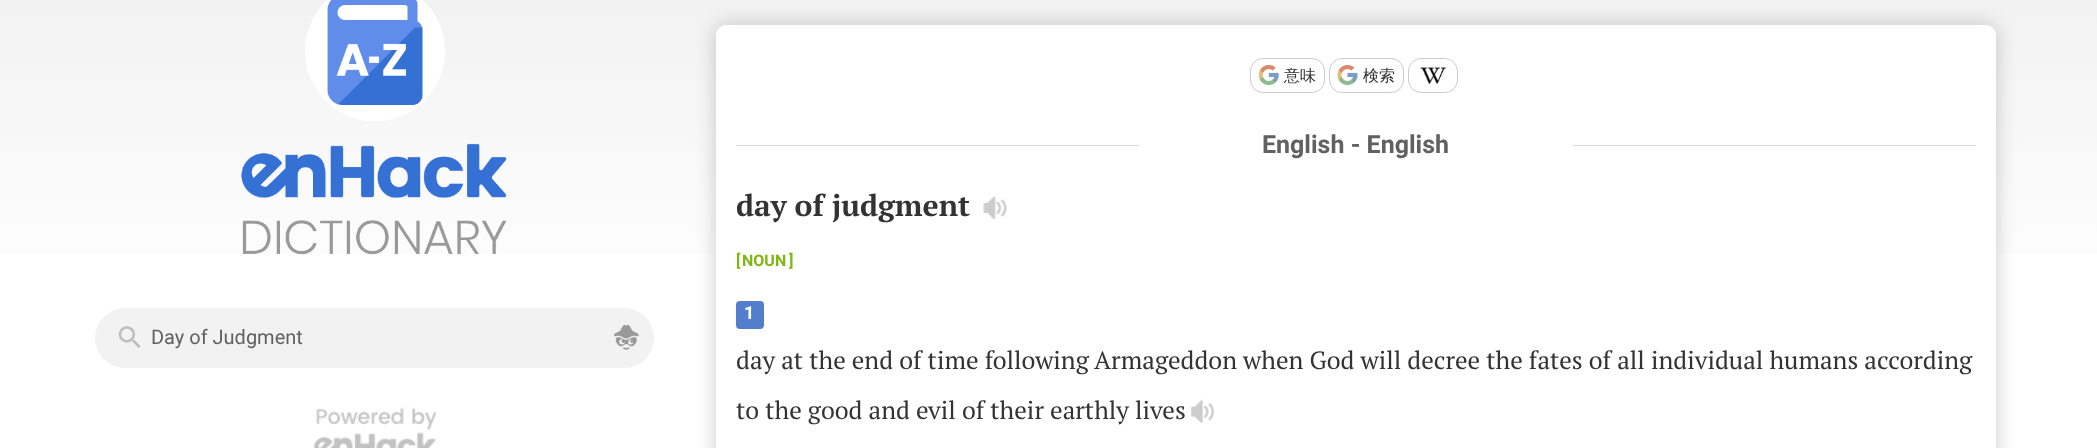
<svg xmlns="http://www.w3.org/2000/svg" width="2097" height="448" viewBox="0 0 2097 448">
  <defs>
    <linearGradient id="g1" gradientUnits="userSpaceOnUse" x1="1049" y1="0" x2="1049" y2="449"><stop offset="0" stop-color="rgb(242,242,242)"/><stop offset="0.7" stop-color="rgb(255,255,255)"/></linearGradient>
  </defs>
  <rect width="100%" height="100%" fill="rgb(255,255,255)"/>
  <rect x="0" y="0" width="2097" height="254" fill="url(#g1)"/>
  <rect x="95" y="308" width="559" height="60" rx="30" fill="rgb(242,242,242)"/>
  <image x="118" y="326" width="23" height="22" href="pic1.png"/>
  <text x="151" y="344" font-family="Roboto" font-size="20" fill="rgb(97,97,97)">Day of Judgment</text>
  <image x="613" y="324" width="26" height="26" href="pic2.png"/>
  <image x="241" y="0" width="266" height="255" href="pic3.png"/>
  <image x="313" y="407" width="123" height="41" href="pic4.png"/>
  <rect x="716" y="25" width="1280" height="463" rx="10" fill="rgba(0,0,0,0.2)" filter="blur(10px)"/>
  <path d="M726 25H1986C1991.5 25 1996 29.5 1996 35V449H716V35C716 29.5 720.5 25 726 25Z" fill="rgb(255,255,255)"/>
  <rect x="1250.5" y="58.5" width="74" height="34" rx="12.5" fill="none" stroke="rgb(204,204,204)"/>
  <image x="1258" y="65" width="21" height="20" href="pic5.png"/>
  <text x="1284" y="81" font-family="WenQuanYi Zen Hei" font-size="16" font-weight="500" fill="rgb(51,51,51)">意味</text>
  <rect x="1329.5" y="58.5" width="74" height="34" rx="12.5" fill="none" stroke="rgb(204,204,204)"/>
  <image x="1337" y="65" width="21" height="20" href="pic6.png"/>
  <text x="1363" y="81" font-family="WenQuanYi Zen Hei" font-size="16" font-weight="500" fill="rgb(51,51,51)">検索</text>
  <rect x="1408.5" y="58.5" width="49" height="34" rx="12.5" fill="none" stroke="rgb(204,204,204)"/>
  <image x="1420" y="67" width="27" height="17" href="pic7.png"/>
  <rect x="736" y="145" width="1240" height="1" fill="rgb(217,217,217)"/>
  <rect x="1139" y="145" width="434" height="1" fill="rgb(255,255,255)"/>
  <text x="1262" y="153" font-family="Roboto" font-size="25" font-weight="bold" fill="rgb(97,97,97)">English - English</text>
  <text x="736" y="216" font-family="PT Serif" font-size="30" font-weight="bold" fill="rgb(51,51,51)">day of judgment</text>
  <image x="983" y="196" width="24" height="23" href="pic8.png"/>
  <g font-family="Roboto" font-size="16" font-weight="bold" fill="rgb(126,183,15)">
    <text x="736" y="266">[</text>
    <text x="742" y="266">NOUN</text>
    <text x="789" y="266">]</text>
  </g>
  <rect x="736" y="301" width="28" height="28" rx="4" fill="rgb(82,126,204)"/>
  <text x="744" y="319" font-family="Roboto" font-size="18" font-weight="bold" fill="rgb(255,255,255)">1</text>
  <g font-family="PT Serif" font-size="25" fill="rgb(51,51,51)">
    <text x="736" y="369">day at the end of time following</text>
    <text x="1094" y="369">Armageddon when God will decree the fates of all individual humans according</text>
    <text x="736" y="419">to the good and evil of their earthly lives</text>
  </g>
  <image x="1191" y="399" width="24" height="24" href="pic9.png"/>
</svg>
